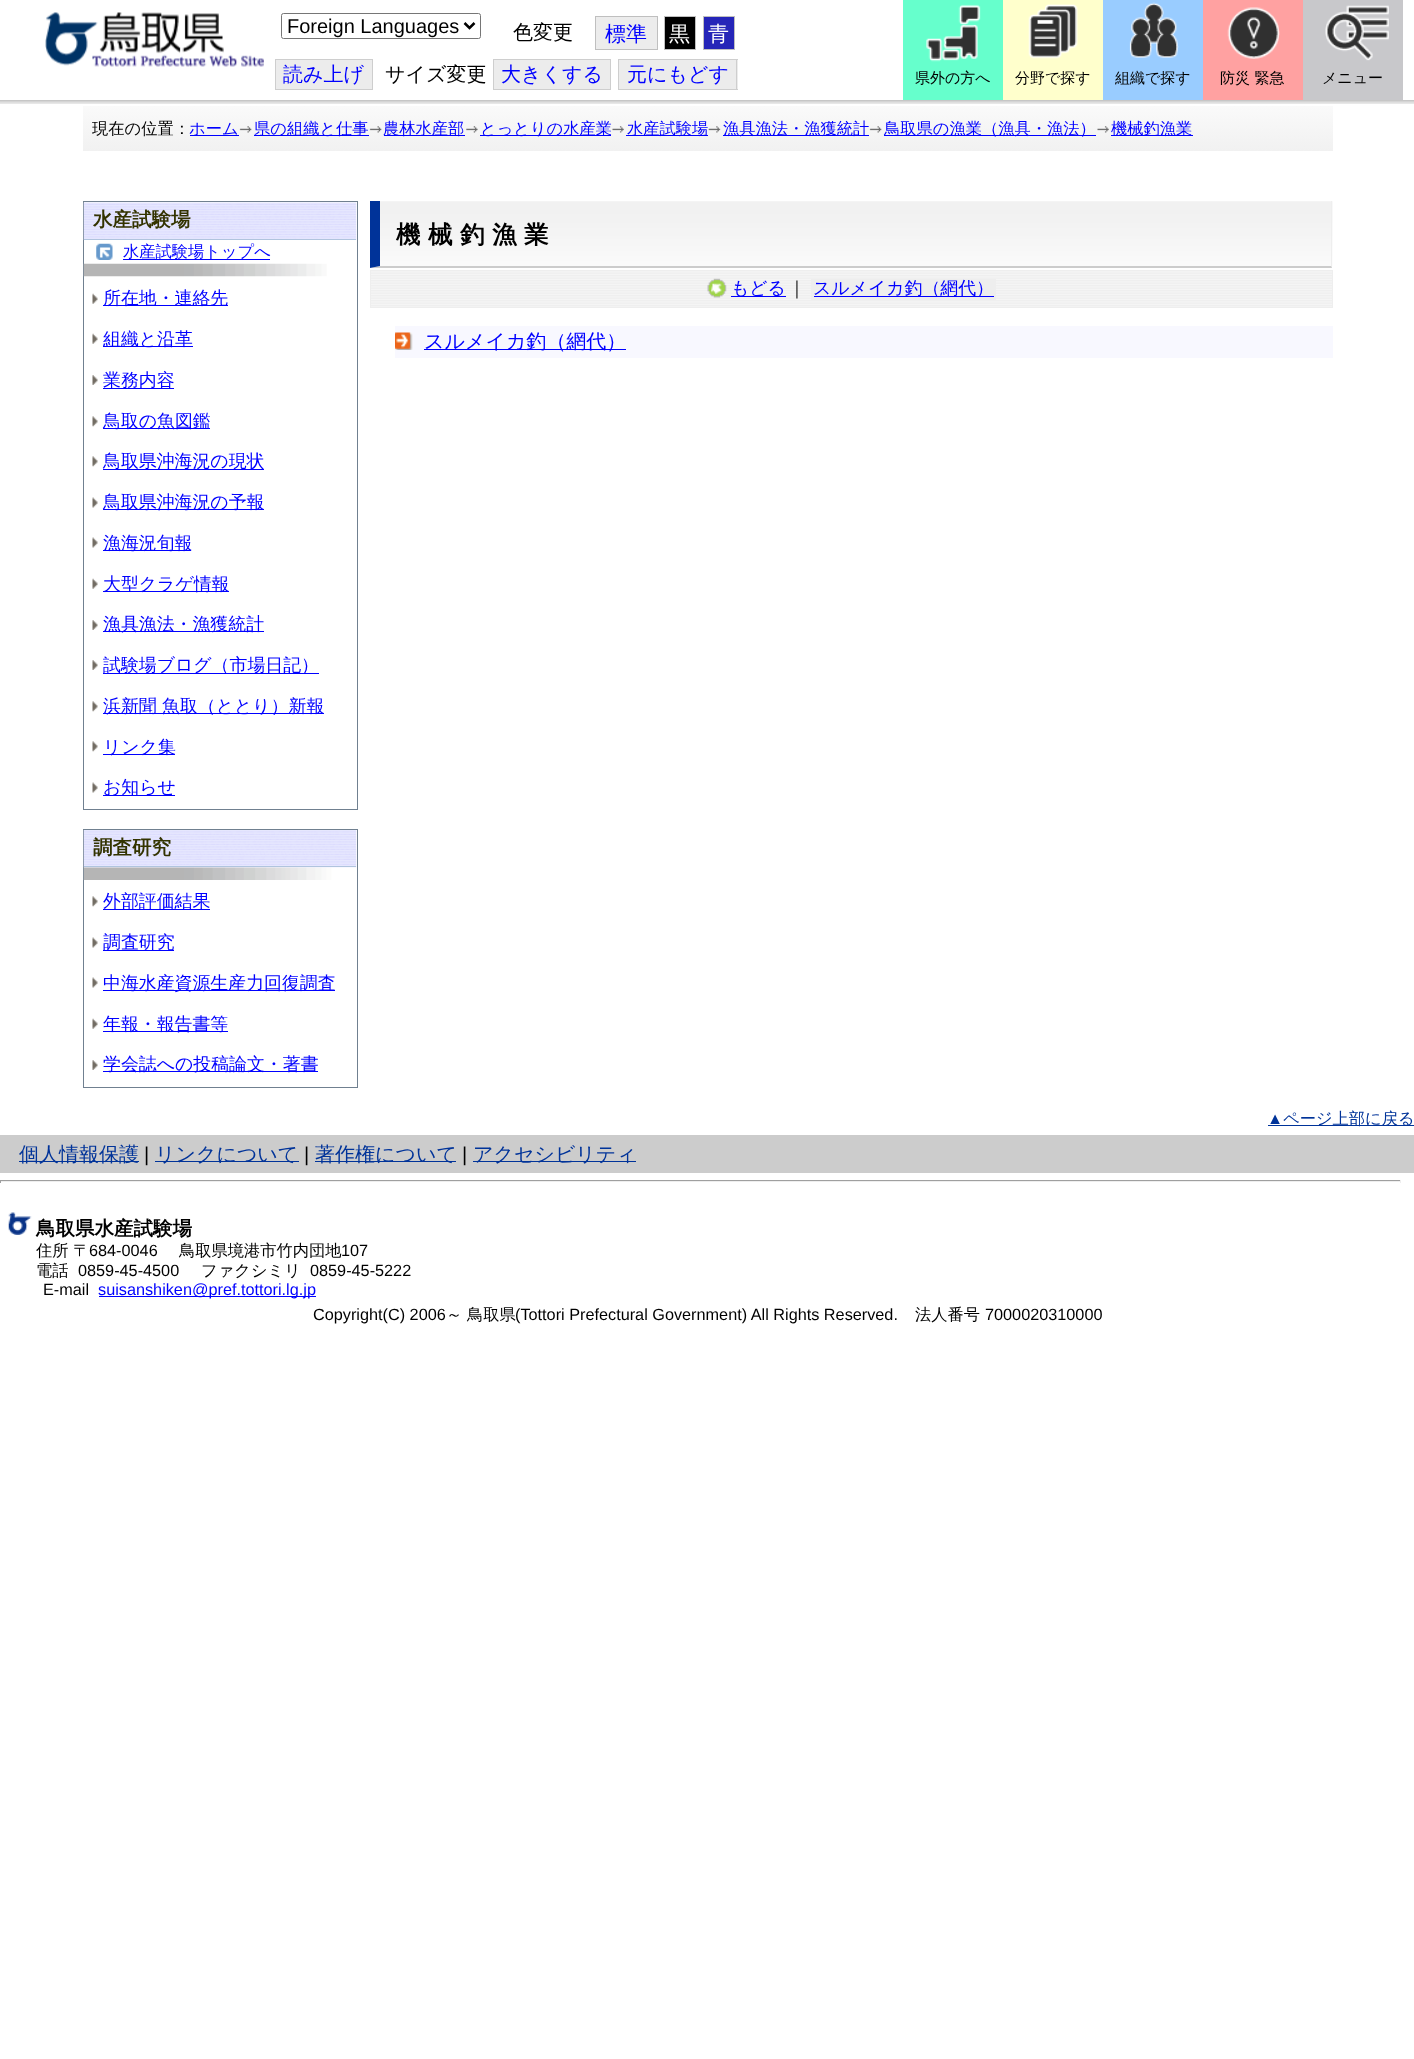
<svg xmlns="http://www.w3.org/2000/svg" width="1414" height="2059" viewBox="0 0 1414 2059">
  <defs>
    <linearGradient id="g1" gradientUnits="userSpaceOnUse" x1="708" y1="106" x2="708" y2="151"><stop offset="0" stop-color="rgb(250,250,250)"/><stop offset="1" stop-color="rgb(241,241,241)"/></linearGradient>
    <clipPath id="clip1"><rect x="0" y="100" width="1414" height="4"/></clipPath>
  </defs>
  <rect width="100%" height="100%" fill="rgb(255,255,255)"/>
  <rect x="83" y="106" width="1250" height="45" fill="url(#g1)"/>
  <g clip-path="url(#clip1)">
    <rect x="-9" y="1" width="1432" height="100" fill="rgba(0,0,0,0.1)" filter="blur(3px)"/>
    <rect x="-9" y="1" width="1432" height="100" fill="rgba(0,0,0,0.1)" filter="blur(3px)"/>
    <rect x="-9" y="1" width="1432" height="100" fill="rgba(0,0,0,0.1)" filter="blur(3px)"/>
    <rect x="-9" y="1" width="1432" height="100" fill="rgba(0,0,0,0.1)" filter="blur(3px)"/>
  </g>
  <image x="45" y="12" width="219" height="55" href="pic1.png"/>
  <rect x="281.5" y="13.5" width="199" height="25" rx="2" fill="none" stroke="rgb(118,118,118)"/>
  <path d="M464.5 23L469.5 28L474.5 23" fill="none" stroke="rgb(0,0,0)" stroke-width="2.5"/>
  <text x="287" y="33" font-family="Liberation Sans" font-size="20" fill="rgb(0,0,0)">Foreign Languages</text>
  <text x="513" y="39" font-family="WenQuanYi Zen Hei" font-size="20" font-weight="500" fill="rgb(0,0,0)">色変更</text>
  <rect x="595.5" y="16.5" width="62" height="33" fill="rgb(236,236,236)" stroke="rgb(191,191,191)"/>
  <text x="605" y="41" font-family="WenQuanYi Zen Hei" font-size="21" font-weight="500" fill="rgb(0,0,255)">標準</text>
  <rect x="664.5" y="16.5" width="31" height="33" fill="rgb(0,0,0)" stroke="rgb(191,191,191)"/>
  <text x="669" y="41" font-family="WenQuanYi Zen Hei" font-size="21" font-weight="500" fill="rgb(255,255,255)">黒</text>
  <rect x="703.5" y="16.5" width="31" height="33" fill="rgb(37,37,184)" stroke="rgb(191,191,191)"/>
  <text x="708" y="41" font-family="WenQuanYi Zen Hei" font-size="21" font-weight="500" fill="rgb(255,255,255)">青</text>
  <rect x="275.5" y="59.5" width="97" height="30" fill="rgb(236,236,236)" stroke="rgb(206,206,206)"/>
  <text x="283" y="81" font-family="WenQuanYi Zen Hei" font-size="20" font-weight="500" fill="rgb(0,0,255)">読み上げ</text>
  <text x="385" y="81" font-family="WenQuanYi Zen Hei" font-size="20" font-weight="500" fill="rgb(0,0,0)">サイズ変更</text>
  <rect x="494" y="60" width="116" height="29" fill="rgb(236,236,236)"/>
  <text x="501" y="81" font-family="WenQuanYi Zen Hei" font-size="20" font-weight="500" fill="rgb(0,0,255)">大きくする</text>
  <rect x="493" y="59" width="118" height="1" fill="rgb(206,206,206)"/>
  <rect x="493" y="89" width="28" height="1" fill="rgb(206,206,206)"/>
  <rect x="493" y="59" width="1" height="31" fill="rgb(206,206,206)"/>
  <rect x="610" y="59" width="1" height="31" fill="rgb(206,206,206)"/>
  <rect x="521" y="89" width="90" height="1" fill="rgb(206,206,206)"/>
  <rect x="619" y="60" width="119" height="29" fill="rgb(236,236,236)"/>
  <text x="627" y="81" font-family="WenQuanYi Zen Hei" font-size="20" font-weight="500" fill="rgb(0,0,255)">元にもどす</text>
  <rect x="618" y="59" width="120" height="1" fill="rgb(206,206,206)"/>
  <rect x="618" y="89" width="28" height="1" fill="rgb(206,206,206)"/>
  <rect x="618" y="59" width="1" height="31" fill="rgb(206,206,206)"/>
  <rect x="736" y="59" width="1" height="31" fill="rgb(206,206,206)"/>
  <rect x="646" y="89" width="92" height="1" fill="rgb(206,206,206)"/>
  <rect x="903" y="0" width="100" height="100" fill="rgb(102,255,204)"/>
  <image x="926" y="4" width="55" height="58" href="pic2.png"/>
  <text x="915" y="83" font-family="WenQuanYi Zen Hei" font-size="15" font-weight="500" fill="rgb(0,0,0)">県外の方へ</text>
  <rect x="1003" y="0" width="100" height="100" fill="rgb(255,255,204)"/>
  <image x="1028" y="4" width="50" height="55" href="pic3.png"/>
  <text x="1015" y="83" font-family="WenQuanYi Zen Hei" font-size="15" font-weight="500" fill="rgb(0,0,0)">分野で探す</text>
  <rect x="1103" y="0" width="100" height="100" fill="rgb(153,204,255)"/>
  <image x="1129" y="2" width="50" height="56" href="pic4.png"/>
  <text x="1115" y="83" font-family="WenQuanYi Zen Hei" font-size="15" font-weight="500" fill="rgb(0,0,0)">組織で探す</text>
  <rect x="1203" y="0" width="100" height="100" fill="rgb(255,161,161)"/>
  <image x="1227" y="7" width="53" height="52" href="pic5.png"/>
  <text x="1220" y="83" font-family="WenQuanYi Zen Hei" font-size="15" font-weight="500" fill="rgb(0,0,0)">防災 緊急</text>
  <rect x="1303" y="0" width="100" height="100" fill="rgb(200,200,203)"/>
  <image x="1325" y="5" width="64" height="56" href="pic6.png"/>
  <text x="1322" y="83" font-family="WenQuanYi Zen Hei" font-size="15" font-weight="500" fill="rgb(0,0,0)">メニュー</text>
  <text x="92" y="134" font-family="WenQuanYi Zen Hei" font-size="16.25" font-weight="500" fill="rgb(0,0,0)">現在の位置：</text>
  <rect x="190" y="135" width="49" height="1" fill="rgb(0,0,255)"/>
  <text x="189" y="134" font-family="WenQuanYi Zen Hei" font-size="16.25" font-weight="500" fill="rgb(0,0,255)">ホーム</text>
  <image x="239" y="126" width="13" height="7" href="pic7.png"/>
  <rect x="254" y="135" width="115" height="1" fill="rgb(0,0,255)"/>
  <text x="254" y="134" font-family="WenQuanYi Zen Hei" font-size="16.25" font-weight="500" fill="rgb(0,0,255)">県の組織と仕事</text>
  <image x="369" y="126" width="13" height="7" href="pic8.png"/>
  <rect x="384" y="135" width="81" height="1" fill="rgb(0,0,255)"/>
  <text x="383" y="134" font-family="WenQuanYi Zen Hei" font-size="16.25" font-weight="500" fill="rgb(0,0,255)">農林水産部</text>
  <image x="466" y="126" width="12" height="7" href="pic9.png"/>
  <rect x="480" y="135" width="131" height="1" fill="rgb(0,0,255)"/>
  <text x="480" y="134" font-family="WenQuanYi Zen Hei" font-size="16.25" font-weight="500" fill="rgb(0,0,255)">とっとりの水産業</text>
  <image x="612" y="126" width="12" height="7" href="pic10.png"/>
  <rect x="626" y="135" width="82" height="1" fill="rgb(0,0,255)"/>
  <text x="627" y="134" font-family="WenQuanYi Zen Hei" font-size="16.25" font-weight="500" fill="rgb(0,0,255)">水産試験場</text>
  <image x="708" y="126" width="13" height="7" href="pic11.png"/>
  <rect x="723" y="135" width="146" height="1" fill="rgb(0,0,255)"/>
  <text x="723" y="134" font-family="WenQuanYi Zen Hei" font-size="16.25" font-weight="500" fill="rgb(0,0,255)">漁具漁法・漁獲統計</text>
  <image x="869" y="126" width="13" height="7" href="pic8.png"/>
  <rect x="884" y="135" width="212" height="1" fill="rgb(0,0,255)"/>
  <text x="884" y="134" font-family="WenQuanYi Zen Hei" font-size="16.25" font-weight="500" fill="rgb(0,0,255)">鳥取県の漁業（漁具・漁法）</text>
  <image x="1097" y="126" width="12" height="7" href="pic10.png"/>
  <rect x="1111" y="135" width="82" height="1" fill="rgb(0,0,255)"/>
  <text x="1111" y="134" font-family="WenQuanYi Zen Hei" font-size="16.25" font-weight="500" fill="rgb(0,0,255)">機械釣漁業</text>
  <rect x="83.5" y="201.5" width="274" height="608" fill="none" stroke="rgb(112,128,144)"/>
  <image x="83" y="202" width="274" height="38" href="pic12.png"/>
  <rect x="84" y="239" width="272" height="1" fill="rgb(176,196,222)"/>
  <text x="93" y="226" font-family="WenQuanYi Zen Hei" font-size="19.5" font-weight="bold" fill="rgb(51,51,0)">水産試験場</text>
  <image x="96" y="243" width="17" height="17" href="pic13.png"/>
  <rect x="123" y="259" width="147" height="1" fill="rgb(0,0,255)"/>
  <text x="123" y="257" font-family="WenQuanYi Zen Hei" font-size="16.25" font-weight="500" fill="rgb(0,0,255)">水産試験場トップへ</text>
  <image x="83" y="263" width="244" height="14" href="pic14.png"/>
  <image x="92" y="293" width="6" height="11" href="pic15.png"/>
  <rect x="103" y="305" width="125" height="1" fill="rgb(0,0,255)"/>
  <text x="103" y="304" font-family="WenQuanYi Zen Hei" font-size="17.9" font-weight="500" fill="rgb(0,0,255)">所在地・連絡先</text>
  <image x="92" y="333" width="6" height="11" href="pic16.png"/>
  <rect x="103" y="346" width="90" height="1" fill="rgb(0,0,255)"/>
  <text x="103" y="345" font-family="WenQuanYi Zen Hei" font-size="17.9" font-weight="500" fill="rgb(0,0,255)">組織と沿革</text>
  <image x="92" y="375" width="6" height="10" href="pic17.png"/>
  <rect x="103" y="388" width="71" height="1" fill="rgb(0,0,255)"/>
  <text x="103" y="386" font-family="WenQuanYi Zen Hei" font-size="17.9" font-weight="500" fill="rgb(0,0,255)">業務内容</text>
  <image x="92" y="416" width="6" height="11" href="pic18.png"/>
  <rect x="103" y="428" width="107" height="1" fill="rgb(0,0,255)"/>
  <text x="103" y="427" font-family="WenQuanYi Zen Hei" font-size="17.9" font-weight="500" fill="rgb(0,0,255)">鳥取の魚図鑑</text>
  <image x="92" y="456" width="6" height="11" href="pic18.png"/>
  <rect x="103" y="469" width="161" height="1" fill="rgb(0,0,255)"/>
  <text x="103" y="467" font-family="WenQuanYi Zen Hei" font-size="17.9" font-weight="500" fill="rgb(0,0,255)">鳥取県沖海況の現状</text>
  <image x="92" y="497" width="6" height="11" href="pic19.png"/>
  <rect x="103" y="509" width="161" height="1" fill="rgb(0,0,255)"/>
  <text x="103" y="508" font-family="WenQuanYi Zen Hei" font-size="17.9" font-weight="500" fill="rgb(0,0,255)">鳥取県沖海況の予報</text>
  <image x="92" y="537" width="6" height="11" href="pic19.png"/>
  <rect x="103" y="550" width="88" height="1" fill="rgb(0,0,255)"/>
  <text x="103" y="549" font-family="WenQuanYi Zen Hei" font-size="17.9" font-weight="500" fill="rgb(0,0,255)">漁海況旬報</text>
  <image x="92" y="578" width="6" height="11" href="pic16.png"/>
  <rect x="103" y="591" width="126" height="1" fill="rgb(0,0,255)"/>
  <text x="103" y="590" font-family="WenQuanYi Zen Hei" font-size="17.9" font-weight="500" fill="rgb(0,0,255)">大型クラゲ情報</text>
  <image x="92" y="620" width="6" height="10" href="pic17.png"/>
  <rect x="103" y="631" width="161" height="1" fill="rgb(0,0,255)"/>
  <text x="103" y="630" font-family="WenQuanYi Zen Hei" font-size="17.9" font-weight="500" fill="rgb(0,0,255)">漁具漁法・漁獲統計</text>
  <image x="92" y="660" width="6" height="10" href="pic17.png"/>
  <rect x="103" y="673" width="216" height="1" fill="rgb(0,0,255)"/>
  <text x="103" y="671" font-family="WenQuanYi Zen Hei" font-size="17.9" font-weight="500" fill="rgb(0,0,255)">試験場ブログ（市場日記）</text>
  <image x="92" y="701" width="6" height="11" href="pic18.png"/>
  <rect x="103" y="713" width="221" height="1" fill="rgb(0,0,255)"/>
  <text x="103" y="712" font-family="WenQuanYi Zen Hei" font-size="17.9" font-weight="500" fill="rgb(0,0,255)">浜新聞 魚取（ととり）新報</text>
  <image x="92" y="741" width="6" height="11" href="pic18.png"/>
  <rect x="103" y="754" width="72" height="1" fill="rgb(0,0,255)"/>
  <text x="103" y="753" font-family="WenQuanYi Zen Hei" font-size="17.9" font-weight="500" fill="rgb(0,0,255)">リンク集</text>
  <image x="92" y="782" width="6" height="11" href="pic19.png"/>
  <rect x="103" y="795" width="72" height="1" fill="rgb(0,0,255)"/>
  <text x="103" y="793" font-family="WenQuanYi Zen Hei" font-size="17.9" font-weight="500" fill="rgb(0,0,255)">お知らせ</text>
  <rect x="83.5" y="829.5" width="274" height="258" fill="none" stroke="rgb(112,128,144)"/>
  <image x="83" y="830" width="274" height="38" href="pic20.png"/>
  <rect x="84" y="866" width="272" height="1" fill="rgb(176,196,222)"/>
  <text x="93" y="854" font-family="WenQuanYi Zen Hei" font-size="19.5" font-weight="bold" fill="rgb(51,51,0)">調査研究</text>
  <image x="83" y="867" width="273" height="13" href="pic21.png"/>
  <image x="92" y="896" width="6" height="11" href="pic18.png"/>
  <rect x="103" y="909" width="107" height="1" fill="rgb(0,0,255)"/>
  <text x="103" y="907" font-family="WenQuanYi Zen Hei" font-size="17.9" font-weight="500" fill="rgb(0,0,255)">外部評価結果</text>
  <image x="92" y="937" width="6" height="11" href="pic19.png"/>
  <rect x="103" y="950" width="71" height="1" fill="rgb(0,0,255)"/>
  <text x="103" y="948" font-family="WenQuanYi Zen Hei" font-size="17.9" font-weight="500" fill="rgb(0,0,255)">調査研究</text>
  <image x="92" y="977" width="6" height="11" href="pic19.png"/>
  <rect x="103" y="990" width="232" height="1" fill="rgb(0,0,255)"/>
  <text x="103" y="989" font-family="WenQuanYi Zen Hei" font-size="17.9" font-weight="500" fill="rgb(0,0,255)">中海水産資源生産力回復調査</text>
  <image x="92" y="1018" width="6" height="11" href="pic16.png"/>
  <rect x="103" y="1031" width="125" height="1" fill="rgb(0,0,255)"/>
  <text x="103" y="1030" font-family="WenQuanYi Zen Hei" font-size="17.9" font-weight="500" fill="rgb(0,0,255)">年報・報告書等</text>
  <image x="92" y="1060" width="6" height="10" href="pic17.png"/>
  <rect x="103" y="1071" width="215" height="1" fill="rgb(0,0,255)"/>
  <text x="103" y="1070" font-family="WenQuanYi Zen Hei" font-size="17.9" font-weight="500" fill="rgb(0,0,255)">学会誌への投稿論文・著書</text>
  <image x="380" y="201" width="953" height="65" href="pic22.png"/>
  <rect x="1331" y="201" width="1" height="67" fill="rgb(238,238,238)"/>
  <path d="M1332 268H370L380 266H1331Z" fill="rgb(204,204,204)"/>
  <path d="M370 268V201H380V266Z" fill="rgb(0,51,153)"/>
  <text x="396" y="243" font-family="WenQuanYi Zen Hei" font-size="24.5" font-weight="bold" letter-spacing="7.5" fill="rgb(0,0,0)">機械釣漁業</text>
  <image x="371" y="271" width="961" height="36" href="pic23.png"/>
  <rect x="370.5" y="270.5" width="962" height="37" fill="none" stroke="rgb(238,238,238)"/>
  <image x="707" y="278" width="20" height="20" href="pic24.png"/>
  <rect x="731" y="296" width="55" height="1" fill="rgb(0,0,255)"/>
  <text x="731" y="294" font-family="WenQuanYi Zen Hei" font-size="17.9" font-weight="500" fill="rgb(0,0,255)">もどる</text>
  <text x="788" y="294" font-family="WenQuanYi Zen Hei" font-size="17.9" font-weight="500" fill="rgb(0,0,0)">｜</text>
  <rect x="811" y="279" width="185" height="21" fill="rgb(238,238,238)"/>
  <rect x="814" y="296" width="180" height="1" fill="rgb(0,0,255)"/>
  <text x="813" y="294" font-family="WenQuanYi Zen Hei" font-size="17.9" font-weight="500" fill="rgb(0,0,255)">スルメイカ釣（網代）</text>
  <rect x="395" y="326" width="938" height="32" fill="rgb(248,248,255)"/>
  <image x="395" y="332" width="18" height="18" href="pic25.png"/>
  <rect x="424" y="349" width="202" height="1" fill="rgb(0,0,255)"/>
  <text x="424" y="348" font-family="WenQuanYi Zen Hei" font-size="20" font-weight="500" fill="rgb(0,0,255)">スルメイカ釣（網代）</text>
  <text x="1267" y="1124" font-family="Liberation Sans" font-size="16.25" fill="rgb(0,51,153)">▲</text>
  <rect x="1268" y="1125" width="146" height="1" fill="rgb(0,51,153)"/>
  <text x="1283" y="1124" font-family="WenQuanYi Zen Hei" font-size="16.25" font-weight="500" fill="rgb(0,51,153)">ページ上部に戻る</text>
  <rect x="0" y="1135" width="1414" height="38" fill="rgb(204,204,204)"/>
  <rect x="19" y="1161" width="120" height="1" fill="rgb(0,51,153)"/>
  <text x="19" y="1161" font-family="WenQuanYi Zen Hei" font-size="20" font-weight="500" fill="rgb(0,51,153)">個人情報保護</text>
  <text x="144" y="1161" font-family="Liberation Sans" font-size="20" fill="rgb(0,0,0)">|</text>
  <rect x="155" y="1161" width="144" height="1" fill="rgb(0,51,153)"/>
  <text x="155" y="1161" font-family="WenQuanYi Zen Hei" font-size="20" font-weight="500" fill="rgb(0,51,153)">リンクについて</text>
  <text x="304" y="1161" font-family="Liberation Sans" font-size="20" fill="rgb(0,0,0)">|</text>
  <rect x="315" y="1161" width="141" height="1" fill="rgb(0,51,153)"/>
  <text x="315" y="1161" font-family="WenQuanYi Zen Hei" font-size="20" font-weight="500" fill="rgb(0,51,153)">著作権について</text>
  <text x="462" y="1161" font-family="Liberation Sans" font-size="20" fill="rgb(0,0,0)">|</text>
  <rect x="473" y="1161" width="163" height="1" fill="rgb(0,51,153)"/>
  <text x="473" y="1161" font-family="WenQuanYi Zen Hei" font-size="20" font-weight="500" fill="rgb(0,51,153)">アクセシビリティ</text>
  <rect x="0" y="1180" width="1401" height="1" fill="rgb(159,159,159)"/>
  <rect x="1400" y="1180" width="1" height="3" fill="rgb(238,238,238)"/>
  <rect x="0" y="1181" width="1401" height="1" fill="rgb(238,238,238)"/>
  <rect x="0" y="1180" width="1" height="3" fill="rgb(159,159,159)"/>
  <image x="8" y="1212" width="24" height="23" href="pic26.png"/>
  <text x="36" y="1235" font-family="WenQuanYi Zen Hei" font-size="19.5" font-weight="bold" fill="rgb(0,0,0)">鳥取県水産試験場</text>
  <text x="36" y="1256" font-family="WenQuanYi Zen Hei" font-size="16.25" font-weight="500" fill="rgb(0,0,0)">住所 〒</text>
  <text x="89" y="1256" font-family="Liberation Sans" font-size="16.25" fill="rgb(0,0,0)">684-0046</text>
  <text x="179" y="1256" font-family="WenQuanYi Zen Hei" font-size="16.25" font-weight="500" fill="rgb(0,0,0)">鳥取県境港市竹内団地</text>
  <text x="341" y="1256" font-family="Liberation Sans" font-size="16.25" fill="rgb(0,0,0)">107</text>
  <text x="36" y="1276" font-family="WenQuanYi Zen Hei" font-size="16.25" font-weight="500" fill="rgb(0,0,0)">電話</text>
  <text x="78" y="1276" font-family="Liberation Sans" font-size="16.25" fill="rgb(0,0,0)">0859-45-4500</text>
  <text x="201" y="1276" font-family="WenQuanYi Zen Hei" font-size="16.25" font-weight="500" fill="rgb(0,0,0)">ファクシミリ</text>
  <g font-family="Liberation Sans" font-size="16.25" fill="rgb(0,0,0)">
    <text x="310" y="1276">0859-45-5222</text>
    <text x="43" y="1295">E-mail</text>
  </g>
  <rect x="99" y="1296" width="217" height="1" fill="rgb(0,0,255)"/>
  <text x="98" y="1295" font-family="Liberation Sans" font-size="16.25" fill="rgb(0,0,255)">suisanshiken@pref.tottori.lg.jp</text>
  <text x="313" y="1320" font-family="Liberation Sans" font-size="16.25" fill="rgb(0,0,0)">Copyright(C) 2006</text>
  <text x="446" y="1320" font-family="WenQuanYi Zen Hei" font-size="16.25" font-weight="500" fill="rgb(0,0,0)">～ 鳥取県</text>
  <text x="515" y="1320" font-family="Liberation Sans" font-size="16.25" fill="rgb(0,0,0)">(Tottori Prefectural Government) All Rights Reserved.</text>
  <text x="915" y="1320" font-family="WenQuanYi Zen Hei" font-size="16.25" font-weight="500" fill="rgb(0,0,0)">法人番号</text>
  <text x="985" y="1320" font-family="Liberation Sans" font-size="16.25" fill="rgb(0,0,0)">7000020310000</text>
</svg>
